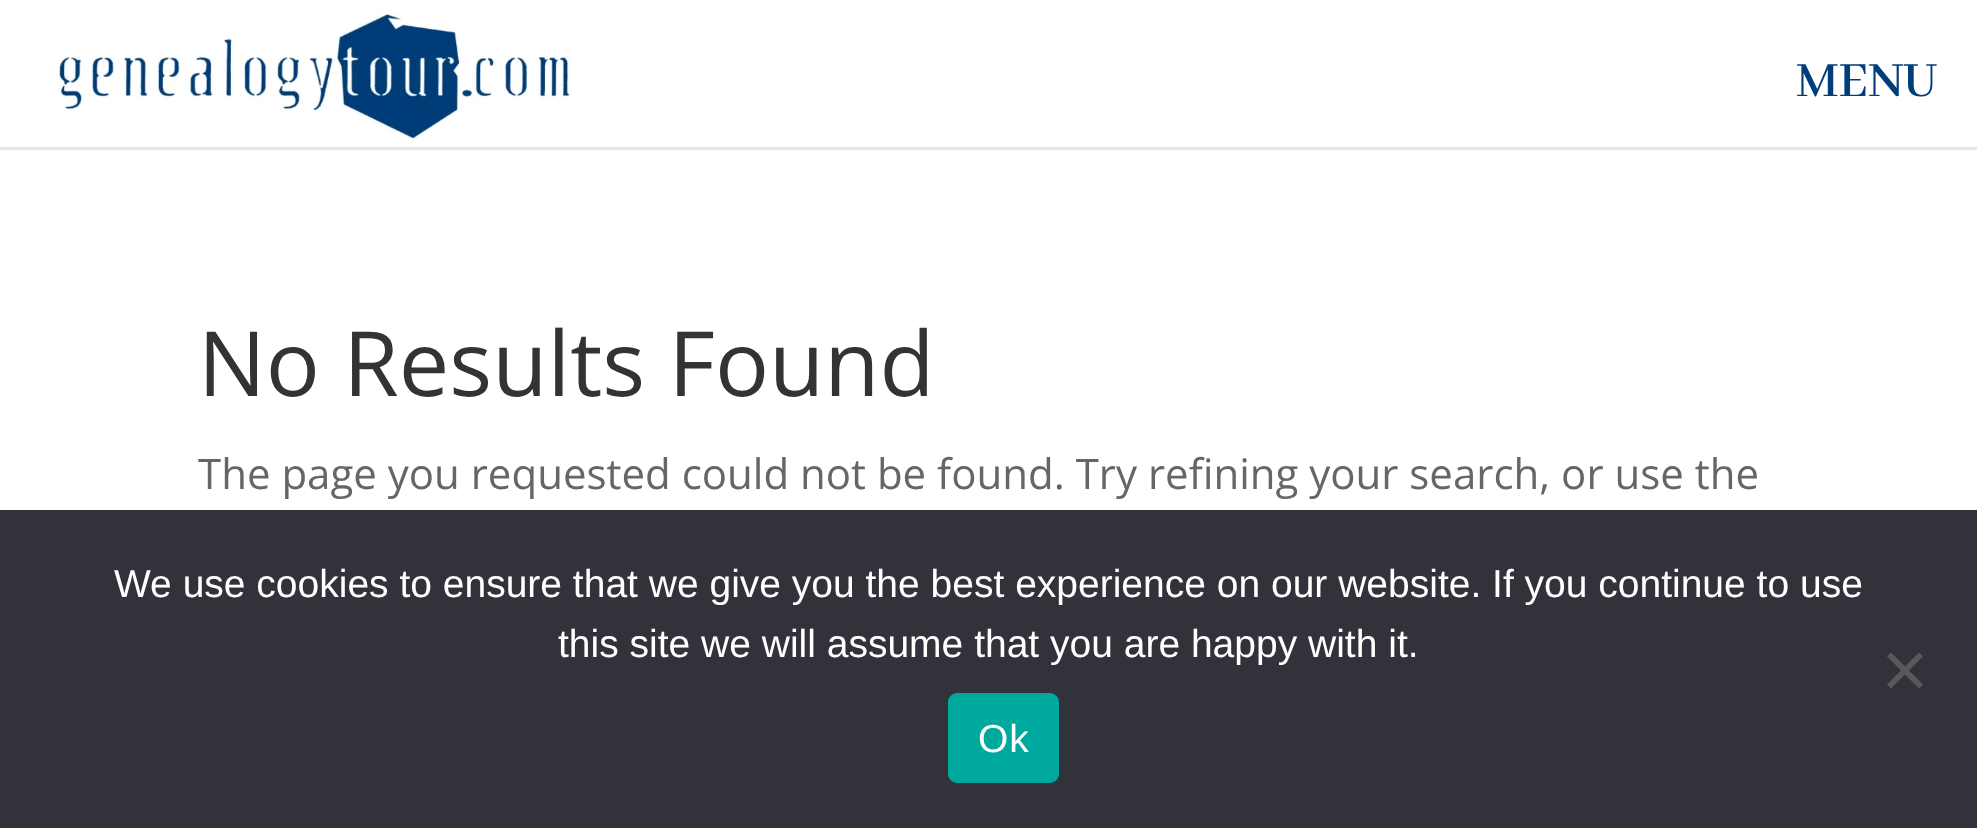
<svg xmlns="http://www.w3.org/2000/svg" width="1977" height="828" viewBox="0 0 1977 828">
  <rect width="100%" height="100%" fill="rgb(255,255,255)"/>
  <rect x="0" y="147" width="1977" height="3" fill="rgb(230,230,230)"/>
  <image x="59" y="11" width="512" height="129" href="pic1.png"/>
  <text x="1796" y="96" font-family="Abhaya Libre SemiBold" font-size="54" font-weight="600" fill="rgb(0,61,121)">MENU</text>
  <text x="198" y="396" font-family="Open Sans" font-size="90" fill="rgb(51,51,51)">No Results Found</text>
  <text x="198" y="489" font-family="Open Sans" font-size="42" fill="rgb(102,102,102)">The page you requested could not be found. Try refining your search, or use the</text>
  <rect x="0" y="510" width="1977" height="318" fill="rgb(50,50,58)"/>
  <g font-family="Liberation Sans" font-size="39" fill="rgb(255,255,255)">
    <text x="114" y="597">We use cookies to ensure that we give you the best experience on our website. If you continue to use</text>
    <text x="558" y="657">this site we will assume that you are happy with it.</text>
  </g>
  <path d="M1919 652.5L1923 656.5L1891 688.5L1887 684.5Z" fill="rgb(89,89,93)"/>
  <path d="M1887 656.5L1891 652.5L1923 684.5L1919 688.5Z" fill="rgb(89,89,93)"/>
  <rect x="948" y="693" width="111" height="90" rx="9" fill="rgb(0,169,157)"/>
  <text x="978" y="752" font-family="Liberation Sans" font-size="39" letter-spacing="1" fill="rgb(255,255,255)">Ok</text>
</svg>
